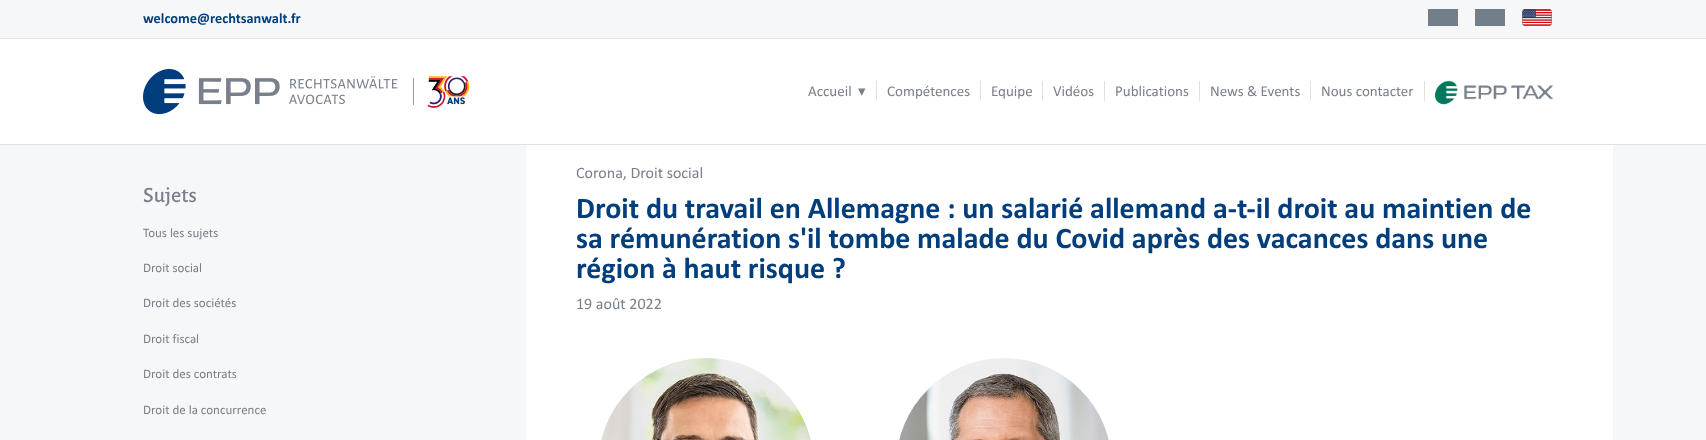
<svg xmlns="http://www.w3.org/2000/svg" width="1706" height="440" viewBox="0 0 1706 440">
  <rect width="100%" height="100%" fill="rgb(246,247,248)"/>
  <rect x="0" y="39" width="1706" height="105" fill="rgb(255,255,255)"/>
  <rect x="0" y="38" width="1706" height="1" fill="rgb(225,225,225)"/>
  <text x="143" y="23" font-family="Calibri" font-size="14.4" font-weight="bold" fill="rgb(2,62,124)">welcome@rechtsanwalt.fr</text>
  <rect x="1428" y="9" width="30" height="17" fill="rgb(115,126,139)"/>
  <rect x="1475" y="9" width="30" height="17" fill="rgb(115,126,139)"/>
  <image x="1522" y="9" width="30" height="17" href="pic1.png"/>
  <rect x="0" y="144" width="1706" height="1" fill="rgb(225,225,225)"/>
  <image x="143" y="69" width="327" height="46" href="pic2.png"/>
  <text x="808" y="96" font-family="Calibri" font-size="15" fill="rgb(121,128,139)">Accueil</text>
  <text x="858" y="96" font-family="DejaVu Sans" font-size="15" fill="rgb(121,128,139)">▾</text>
  <text x="887" y="96" font-family="Calibri" font-size="15" fill="rgb(121,128,139)">Compétences</text>
  <rect x="876" y="81" width="1" height="20" fill="rgb(225,225,225)"/>
  <text x="991" y="96" font-family="Calibri" font-size="15" fill="rgb(121,128,139)">Equipe</text>
  <rect x="980" y="81" width="1" height="20" fill="rgb(225,225,225)"/>
  <text x="1053" y="96" font-family="Calibri" font-size="15" fill="rgb(121,128,139)">Vidéos</text>
  <rect x="1042" y="81" width="1" height="20" fill="rgb(225,225,225)"/>
  <text x="1115" y="96" font-family="Calibri" font-size="15" fill="rgb(121,128,139)">Publications</text>
  <rect x="1104" y="81" width="1" height="20" fill="rgb(225,225,225)"/>
  <text x="1210" y="96" font-family="Calibri" font-size="15" fill="rgb(121,128,139)">News &amp; Events</text>
  <rect x="1199" y="81" width="1" height="20" fill="rgb(225,225,225)"/>
  <text x="1321" y="96" font-family="Calibri" font-size="15" fill="rgb(121,128,139)">Nous contacter</text>
  <rect x="1310" y="81" width="1" height="20" fill="rgb(225,225,225)"/>
  <rect x="1424" y="81" width="1" height="20" fill="rgb(225,225,225)"/>
  <image x="1435" y="80" width="118" height="25" href="pic3.png"/>
  <text x="143" y="202" font-family="Alegreya Sans" font-size="22" font-weight="500" fill="rgb(121,128,139)">Sujets</text>
  <g font-family="Calibri" font-size="13" fill="rgb(121,128,139)">
    <text x="143" y="237">Tous les sujets</text>
    <text x="143" y="272">Droit social</text>
    <text x="143" y="307">Droit des sociétés</text>
    <text x="143" y="343">Droit fiscal</text>
    <text x="143" y="378">Droit des contrats</text>
    <text x="143" y="414">Droit de la concurrence</text>
  </g>
  <rect x="526" y="145" width="1087" height="295" fill="rgb(255,255,255)"/>
  <text x="576" y="178" font-family="Calibri" font-size="16" fill="rgb(121,128,139)">Corona, Droit social</text>
  <g font-family="Calibri" font-size="30" font-weight="bold" fill="rgb(2,62,124)">
    <text>
      <tspan x="576" y="218">Droit du travail en Allemagne : un salarié allemand a-t-il droit au maintien de</tspan>
      <tspan x="576" y="248">sa rémunération s'il tombe malade du Covid après des vacances dans une</tspan>
      <tspan x="576" y="278">région à haut risque ?</tspan>
    </text>
  </g>
  <text x="576" y="309" font-family="Calibri" font-size="16" fill="rgb(121,128,139)">19 août 2022</text>
  <image x="601" y="358" width="210" height="82" href="pic4.png"/>
  <image x="899" y="358" width="210" height="82" href="pic5.png"/>
</svg>
